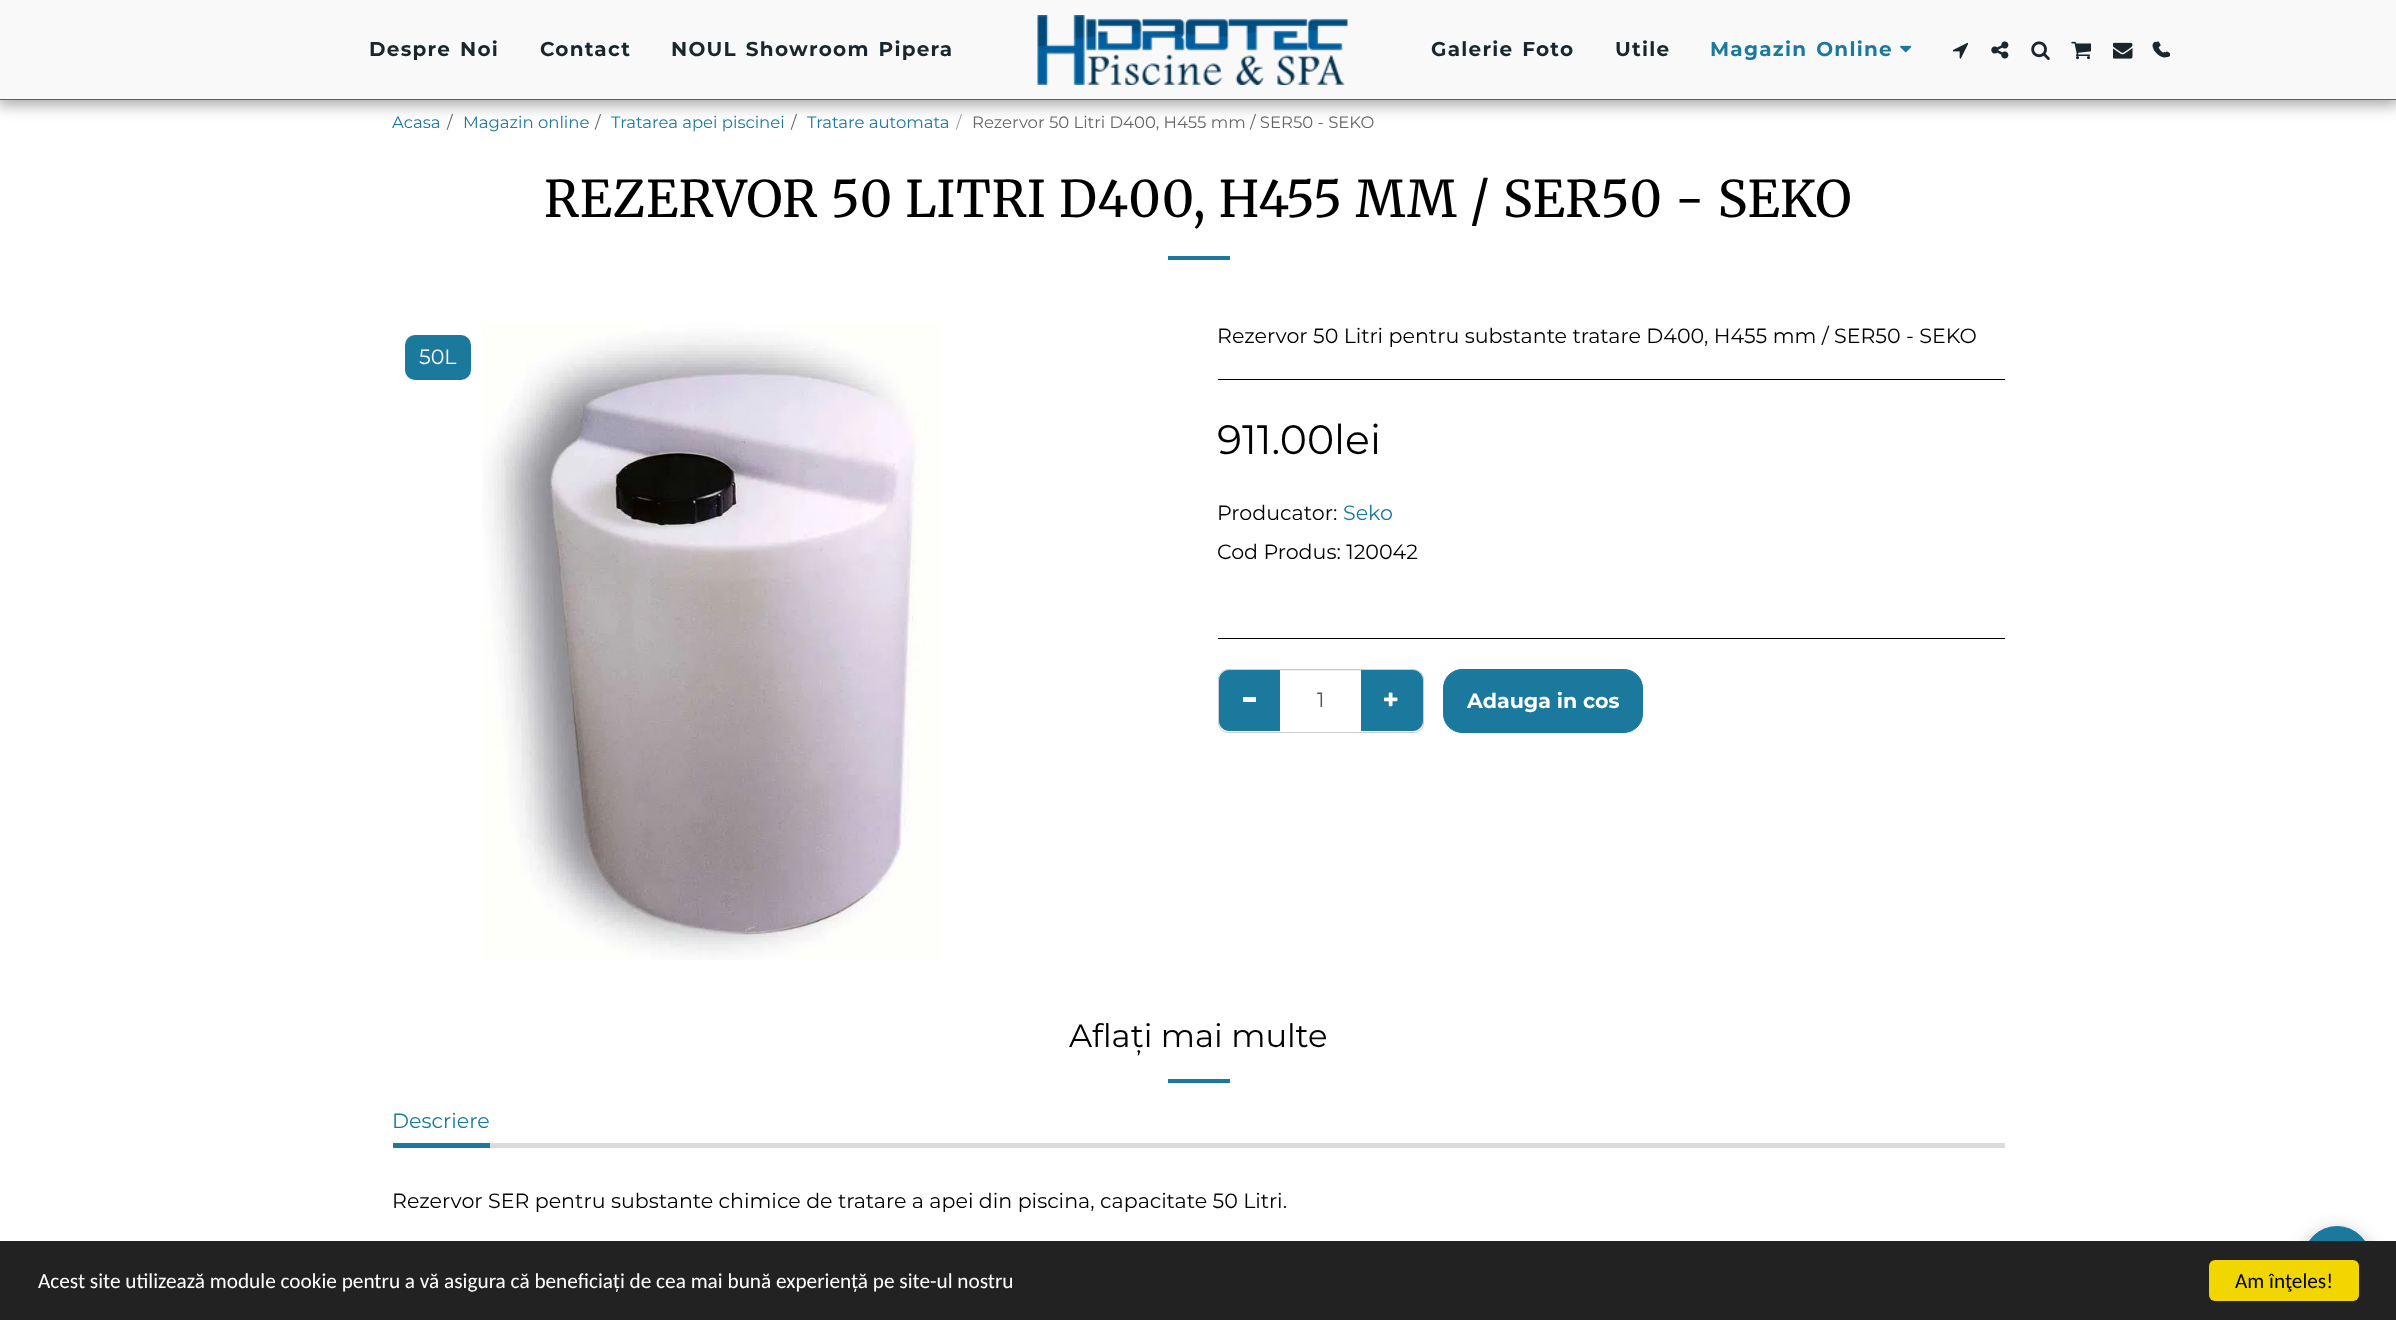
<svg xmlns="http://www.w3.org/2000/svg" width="2396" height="1320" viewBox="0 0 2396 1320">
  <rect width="100%" height="100%" fill="rgb(255,255,255)"/>
  <rect x="-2" y="0" width="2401" height="105" fill="rgba(0,0,0,0.35)" filter="blur(7.5px)"/>
  <rect x="0" y="0" width="2396" height="99" fill="rgb(249,249,249)"/>
  <rect x="0" y="99" width="2396" height="1" fill="rgb(28,121,158)"/>
  <g font-family="Montserrat" font-size="20" font-weight="bold" letter-spacing="1.25" fill="rgb(27,38,44)">
    <text x="369" y="56" word-spacing="2">Despre Noi</text>
    <text x="540" y="56">Contact</text>
    <text x="671" y="56" word-spacing="2">NOUL Showroom Pipera</text>
  </g>
  <image x="1037" y="15" width="311" height="70" href="pic1.png"/>
  <g font-family="Montserrat" font-size="20" font-weight="bold" letter-spacing="1.25" fill="rgb(27,38,44)">
    <text x="1431" y="56" word-spacing="2">Galerie Foto</text>
    <text x="1615" y="56">Utile</text>
  </g>
  <text x="1710" y="56" word-spacing="2" font-family="Montserrat" font-size="20" font-weight="bold" letter-spacing="1.25" fill="rgb(28,121,158)">Magazin Online</text>
  <image x="1900" y="45" width="11" height="8" href="pic2.png"/>
  <image x="1953" y="42" width="15" height="17" href="pic3.png"/>
  <image x="1991" y="41" width="18" height="18" href="pic4.png"/>
  <image x="2031" y="41" width="19" height="19" href="pic5.png"/>
  <image x="2071" y="41" width="20" height="19" href="pic6.png"/>
  <image x="2113" y="42" width="20" height="17" href="pic7.png"/>
  <image x="2156" y="41" width="14" height="17" href="pic8.png"/>
  <image x="2152" y="41" width="15" height="17" href="pic9.png"/>
  <text x="392" y="128" font-family="Montserrat" font-size="16.5" fill="rgb(28,121,158)">Acasa</text>
  <text x="447" y="128" font-family="Montserrat" font-size="16.5" fill="rgb(102,102,102)">/</text>
  <text x="463" y="128" font-family="Montserrat" font-size="16.5" fill="rgb(28,121,158)">Magazin online</text>
  <text x="595" y="128" font-family="Montserrat" font-size="16.5" fill="rgb(102,102,102)">/</text>
  <text x="611" y="128" font-family="Montserrat" font-size="16.5" fill="rgb(28,121,158)">Tratarea apei piscinei</text>
  <text x="791" y="128" font-family="Montserrat" font-size="16.5" fill="rgb(102,102,102)">/</text>
  <text x="807" y="128" font-family="Montserrat" font-size="16.5" fill="rgb(28,121,158)">Tratare automata</text>
  <text x="956" y="128" font-family="Montserrat" font-size="16.5" fill="rgb(163,163,163)">/</text>
  <text x="972" y="128" font-family="Montserrat" font-size="16.5" fill="rgb(102,102,102)">Rezervor 50 Litri D400, H455 mm / SER50 - SEKO</text>
  <text x="544" y="217" font-family="Merriweather" font-size="50.35" letter-spacing="0.6" fill="rgb(0,0,0)">REZERVOR 50 LITRI D400, H455 MM / SER50 - SEKO</text>
  <rect x="1168" y="256" width="62" height="4" fill="rgb(28,121,158)"/>
  <rect x="405" y="335" width="66" height="45" rx="10" fill="rgb(28,121,158)"/>
  <text x="419" y="364" font-family="Montserrat" font-size="20.6" fill="rgb(255,255,255)">50L</text>
  <image x="482" y="322" width="459" height="638" href="pic10.png"/>
  <text x="1217" y="343" font-family="Montserrat" font-size="20.6" fill="rgb(0,0,0)">Rezervor 50 Litri pentru substante tratare D400, H455 mm / SER50 - SEKO</text>
  <rect x="1218" y="379" width="787" height="1" fill="rgb(0,0,0)"/>
  <text x="1217" y="454" font-family="Montserrat" font-size="41" fill="rgb(0,0,0)">911.00lei</text>
  <text x="1217" y="520" font-family="Montserrat" font-size="20.6" fill="rgb(0,0,0)">Producator:</text>
  <text x="1343" y="520" font-family="Montserrat" font-size="20.6" fill="rgb(28,121,158)">Seko</text>
  <text x="1217" y="559" font-family="Montserrat" font-size="20.6" fill="rgb(0,0,0)">Cod Produs: 120042</text>
  <rect x="1218" y="638" width="787" height="1" fill="rgb(0,0,0)"/>
  <rect x="1218.5" y="669.5" width="205" height="63" rx="9.5" fill="none" stroke="rgb(204,204,204)"/>
  <path d="M1229 670H1281V731H1229C1223.5 731 1219 726.5 1219 721V680C1219 674.5 1223.5 670 1229 670Z" fill="rgb(28,121,158)"/>
  <rect x="1243" y="697" width="13" height="5" fill="rgb(255,255,255)"/>
  <path d="M1360 670H1413C1418.5 670 1423 674.5 1423 680V721C1423 726.5 1418.5 731 1413 731H1360Z" fill="rgb(28,121,158)"/>
  <rect x="1280" y="671" width="81" height="60" fill="rgb(255,255,255)"/>
  <rect x="1280" y="670" width="81" height="1" fill="rgb(236,236,236)"/>
  <text x="1317" y="707" font-family="Montserrat" font-size="20.6" fill="rgb(85,85,85)">1</text>
  <image x="1384" y="692" width="14" height="15" href="pic11.png"/>
  <rect x="1443.5" y="669.5" width="199" height="63" rx="18.5" fill="rgb(28,121,158)" stroke="rgb(28,121,158)"/>
  <text x="1467" y="708" font-family="Montserrat" font-size="20.6" font-weight="bold" fill="rgb(255,255,255)">Adauga in cos</text>
  <text x="1069" y="1047" font-family="Montserrat" font-size="32.25" fill="rgb(0,0,0)">Aflați mai multe</text>
  <rect x="1168" y="1079" width="62" height="4" fill="rgb(28,121,158)"/>
  <rect x="490" y="1143" width="1515" height="5" fill="rgb(219,219,219)"/>
  <rect x="393" y="1143" width="97" height="5" fill="rgb(28,121,158)"/>
  <text x="392" y="1128" font-family="Montserrat" font-size="20.6" fill="rgb(28,121,158)">Descriere</text>
  <text x="392" y="1208" font-family="Montserrat" font-size="20.6" fill="rgb(0,0,0)">Rezervor SER pentru substante chimice de tratare a apei din piscina, capacitate 50 Litri.</text>
  <rect x="2303" y="1233" width="68" height="68" rx="34" fill="rgba(0,0,0,0.35)" filter="blur(9.5px)"/>
  <rect x="2303.5" y="1226.5" width="67" height="68" rx="33.5" fill="rgb(28,121,158)" stroke="rgb(28,121,158)"/>
  <rect x="0" y="1241" width="2396" height="79" fill="rgb(34,34,34)"/>
  <text x="38" y="1288" font-family="Carlito" font-size="21.25" fill="rgb(255,255,255)">Acest site utilizează module cookie pentru a vă asigura că beneficiați de cea mai bună experiență pe site-ul nostru</text>
  <rect x="2209" y="1260" width="150" height="41" rx="6" fill="rgb(241,214,0)"/>
  <text x="2235" y="1288" font-family="Carlito" font-size="21.25" fill="rgb(0,0,0)">Am înţeles!</text>
</svg>
